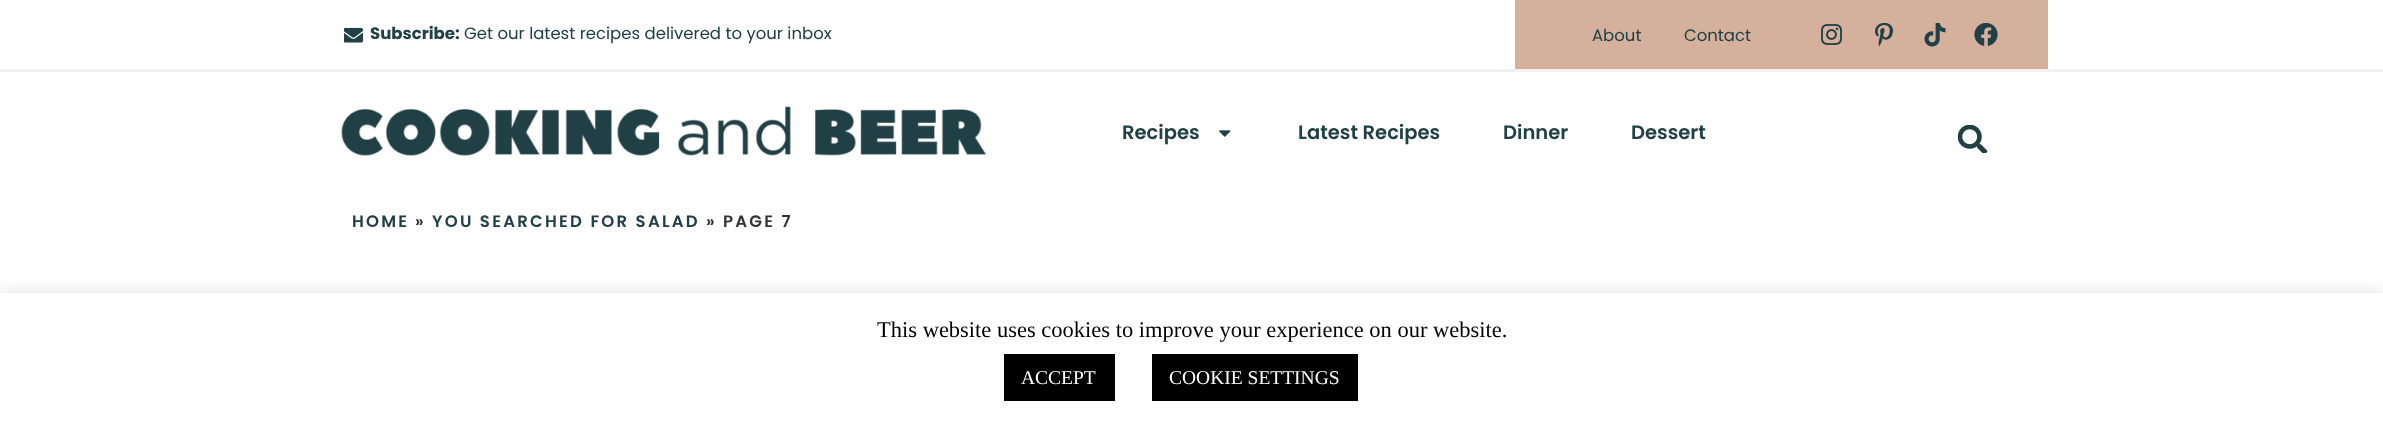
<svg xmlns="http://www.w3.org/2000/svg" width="2383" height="426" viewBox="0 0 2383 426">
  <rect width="100%" height="100%" fill="rgb(255,255,255)"/>
  <rect x="0" y="69" width="2383" height="3" fill="rgb(241,241,241)"/>
  <image x="344" y="27" width="19" height="16" href="pic1.png"/>
  <text x="370" y="39" font-family="Poppins" font-size="16.5" font-weight="bold" fill="rgb(32,64,69)">Subscribe:</text>
  <text x="464" y="39" font-family="Poppins" font-size="16.5" fill="rgb(32,64,69)">Get our latest recipes delivered to your inbox</text>
  <rect x="1515" y="0" width="533" height="69" fill="rgb(213,176,156)"/>
  <g font-family="Poppins" font-size="16.5" fill="rgb(32,64,69)">
    <text x="1592" y="41">About</text>
    <text x="1684" y="41">Contact</text>
  </g>
  <image x="1821" y="24" width="21" height="21" href="pic2.png"/>
  <image x="1875" y="23" width="18" height="24" href="pic3.png"/>
  <image x="1924" y="23" width="22" height="24" href="pic4.png"/>
  <image x="1974" y="23" width="24" height="23" href="pic5.png"/>
  <image x="341" y="106" width="645" height="50" href="pic6.png"/>
  <text x="1122" y="139" font-family="Poppins" font-size="19.5" font-weight="600" fill="rgb(32,64,69)">Recipes</text>
  <image x="1219" y="130" width="12" height="7" href="pic7.png"/>
  <g font-family="Poppins" font-size="19.5" font-weight="600" fill="rgb(32,64,69)">
    <text x="1298" y="139">Latest Recipes</text>
    <text x="1503" y="139">Dinner</text>
    <text x="1631" y="139">Dessert</text>
  </g>
  <image x="1958" y="125" width="30" height="28" href="pic8.png"/>
  <text x="352" y="227" font-family="Poppins" font-size="16.5" font-weight="600" letter-spacing="2.25" fill="rgb(32,64,69)">HOME</text>
  <text x="415" y="227" font-family="Poppins" font-size="16.5" font-weight="600" letter-spacing="2.25" fill="rgb(51,51,51)">»</text>
  <text x="432" y="227" font-family="Poppins" font-size="16.5" font-weight="600" letter-spacing="2.25" fill="rgb(32,64,69)">YOU SEARCHED FOR SALAD</text>
  <text x="706" y="227" font-family="Poppins" font-size="16.5" font-weight="600" letter-spacing="2.25" fill="rgb(51,51,51)">» PAGE 7</text>
  <rect x="0" y="291" width="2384" height="134" fill="rgba(172,171,171,0.3)" filter="blur(7.5px)"/>
  <rect x="0" y="293" width="2383" height="133" fill="rgb(255,255,255)"/>
  <text x="877" y="337" font-family="Liberation Serif" font-size="22.5" fill="rgb(0,0,0)">This website uses cookies to improve your experience on our website.</text>
  <rect x="1004" y="354" width="111" height="47" fill="rgb(0,0,0)"/>
  <text x="1021" y="384" font-family="Liberation Serif" font-size="19.5" fill="rgb(255,255,255)">ACCEPT</text>
  <rect x="1152" y="354" width="206" height="47" fill="rgb(0,0,0)"/>
  <text x="1169" y="384" font-family="Liberation Serif" font-size="19.5" fill="rgb(255,255,255)">COOKIE SETTINGS</text>
</svg>
